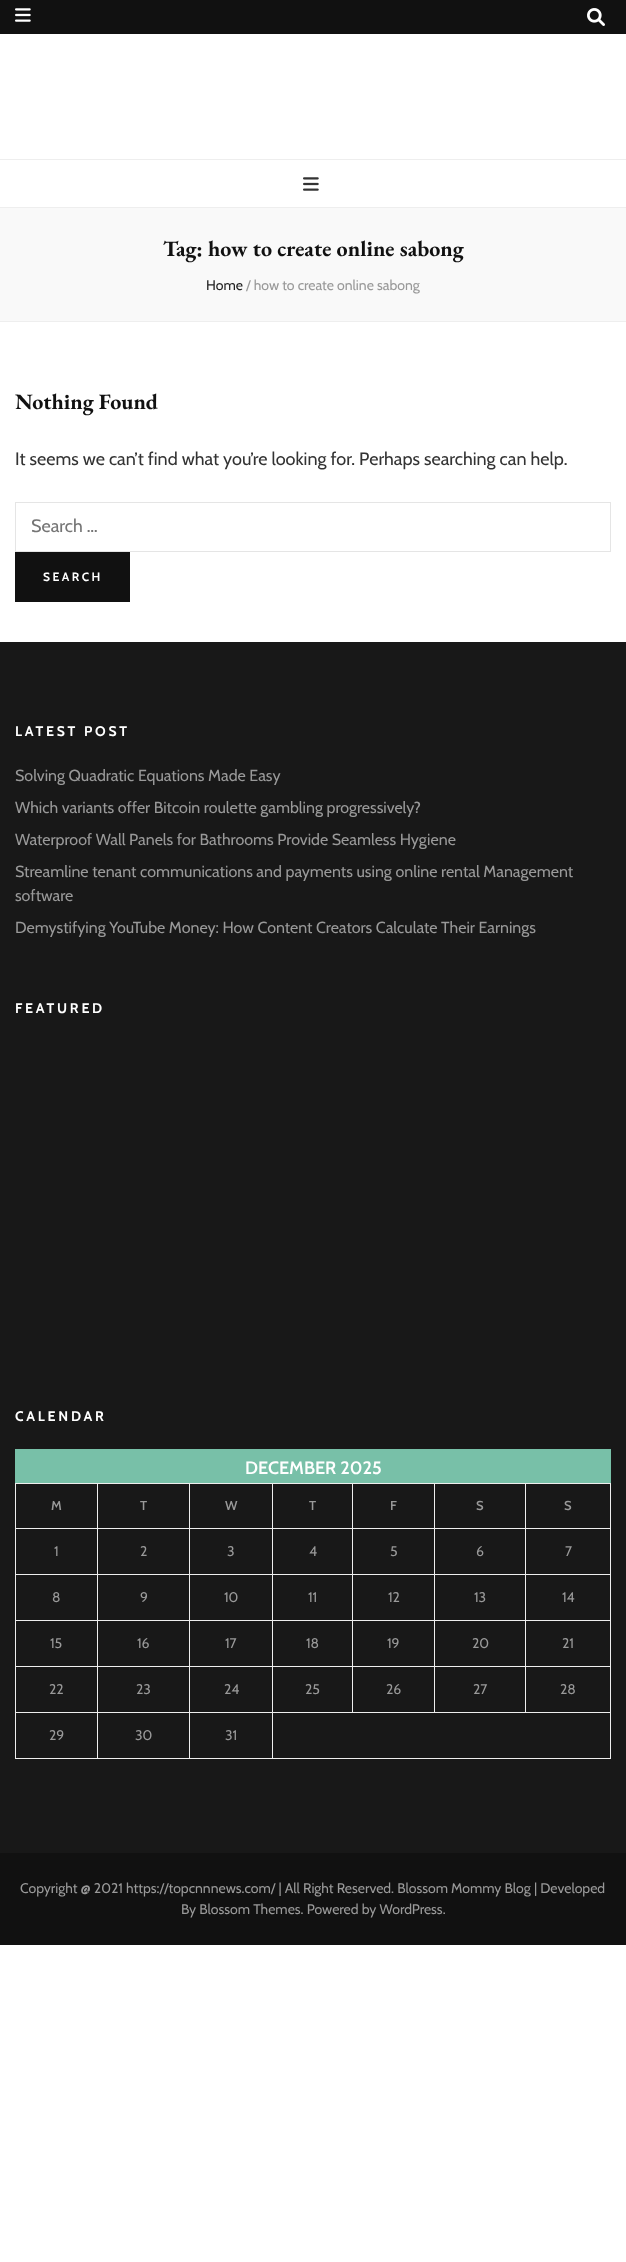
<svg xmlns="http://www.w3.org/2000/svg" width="626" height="2262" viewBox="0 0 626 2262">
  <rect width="100%" height="100%" fill="rgb(255,255,255)"/>
  <rect x="0" y="0" width="626" height="34" fill="rgb(17,17,17)"/>
  <image x="15" y="8" width="16" height="14" href="pic1.png"/>
  <image x="587" y="8" width="18" height="18" href="pic2.png"/>
  <rect x="0" y="159" width="626" height="1" fill="rgb(238,238,238)"/>
  <rect x="0" y="207" width="626" height="1" fill="rgb(238,238,238)"/>
  <image x="303" y="177" width="16" height="14" href="pic3.png"/>
  <rect x="0" y="208" width="626" height="113" fill="rgb(249,249,249)"/>
  <rect x="0" y="321" width="626" height="1" fill="rgb(238,238,238)"/>
  <text x="163" y="256" font-family="EB Garamond" font-size="22" font-weight="bold" fill="rgb(17,17,17)">Tag: how to create online sabong</text>
  <text x="206" y="290" font-family="Cabin" font-size="14" fill="rgb(34,34,34)">Home</text>
  <text x="246" y="290" font-family="Cabin" font-size="14" fill="rgb(153,153,153)">/ how to create online sabong</text>
  <text x="15" y="409" font-family="EB Garamond" font-size="22" font-weight="bold" fill="rgb(17,17,17)">Nothing Found</text>
  <text x="15" y="465" font-family="Cabin" font-size="18" fill="rgb(51,51,51)">It seems we can’t find what you’re looking for. Perhaps searching can help.</text>
  <rect x="15.5" y="502.5" width="595" height="49" fill="none" stroke="rgb(229,229,229)"/>
  <text x="31" y="532" font-family="Cabin" font-size="18" fill="rgb(117,117,117)">Search …</text>
  <rect x="15" y="552" width="115" height="50" fill="rgb(17,17,17)"/>
  <text x="43" y="581" font-family="Cabin" font-size="12" font-weight="bold" letter-spacing="2.5" fill="rgb(255,255,255)">SEARCH</text>
  <rect x="0" y="642" width="626" height="1211" fill="rgb(24,24,24)"/>
  <text x="15" y="736" font-family="Cabin" font-size="14" font-weight="bold" letter-spacing="2.75" fill="rgb(255,255,255)">LATEST POST</text>
  <g font-family="Cabin" font-size="16" fill="rgb(153,153,153)">
    <text x="15" y="781">Solving Quadratic Equations Made Easy</text>
    <text x="15" y="813">Which variants offer Bitcoin roulette gambling progressively?</text>
    <text x="15" y="845">Waterproof Wall Panels for Bathrooms Provide Seamless Hygiene</text>
    <text>
      <tspan x="15" y="877">Streamline tenant communications and payments using online rental Management</tspan>
      <tspan x="15" y="901">software</tspan>
    </text>
    <text x="15" y="933">Demystifying YouTube Money: How Content Creators Calculate Their Earnings</text>
  </g>
  <g font-family="Cabin" font-size="14" font-weight="bold" letter-spacing="2.75" fill="rgb(255,255,255)">
    <text x="15" y="1013">FEATURED</text>
    <text x="15" y="1421">CALENDAR</text>
  </g>
  <rect x="15" y="1449" width="596" height="34" fill="rgb(120,192,168)"/>
  <text x="245" y="1474" font-family="Cabin" font-size="18" font-weight="600" fill="rgb(255,255,255)">DECEMBER 2025</text>
  <rect x="525" y="1483" width="86" height="1" fill="rgb(238,238,238)"/>
  <rect x="525" y="1528" width="86" height="1" fill="rgb(238,238,238)"/>
  <rect x="525" y="1574" width="86" height="1" fill="rgb(238,238,238)"/>
  <rect x="525" y="1620" width="86" height="1" fill="rgb(238,238,238)"/>
  <rect x="525" y="1666" width="86" height="1" fill="rgb(238,238,238)"/>
  <rect x="272" y="1712" width="339" height="1" fill="rgb(238,238,238)"/>
  <rect x="525" y="1666" width="1" height="47" fill="rgb(238,238,238)"/>
  <rect x="434" y="1666" width="92" height="1" fill="rgb(238,238,238)"/>
  <rect x="525" y="1620" width="1" height="47" fill="rgb(238,238,238)"/>
  <rect x="434" y="1620" width="92" height="1" fill="rgb(238,238,238)"/>
  <rect x="525" y="1574" width="1" height="47" fill="rgb(238,238,238)"/>
  <rect x="434" y="1574" width="92" height="1" fill="rgb(238,238,238)"/>
  <rect x="525" y="1528" width="1" height="47" fill="rgb(238,238,238)"/>
  <rect x="434" y="1528" width="92" height="1" fill="rgb(238,238,238)"/>
  <rect x="525" y="1483" width="1" height="46" fill="rgb(238,238,238)"/>
  <rect x="434" y="1483" width="92" height="1" fill="rgb(238,238,238)"/>
  <rect x="434" y="1666" width="1" height="47" fill="rgb(238,238,238)"/>
  <rect x="352" y="1666" width="83" height="1" fill="rgb(238,238,238)"/>
  <rect x="434" y="1620" width="1" height="47" fill="rgb(238,238,238)"/>
  <rect x="352" y="1620" width="83" height="1" fill="rgb(238,238,238)"/>
  <rect x="434" y="1574" width="1" height="47" fill="rgb(238,238,238)"/>
  <rect x="352" y="1574" width="83" height="1" fill="rgb(238,238,238)"/>
  <rect x="434" y="1528" width="1" height="47" fill="rgb(238,238,238)"/>
  <rect x="352" y="1528" width="83" height="1" fill="rgb(238,238,238)"/>
  <rect x="434" y="1483" width="1" height="46" fill="rgb(238,238,238)"/>
  <rect x="352" y="1483" width="83" height="1" fill="rgb(238,238,238)"/>
  <rect x="352" y="1666" width="1" height="47" fill="rgb(238,238,238)"/>
  <rect x="272" y="1666" width="81" height="1" fill="rgb(238,238,238)"/>
  <rect x="352" y="1620" width="1" height="47" fill="rgb(238,238,238)"/>
  <rect x="272" y="1620" width="81" height="1" fill="rgb(238,238,238)"/>
  <rect x="352" y="1574" width="1" height="47" fill="rgb(238,238,238)"/>
  <rect x="272" y="1574" width="81" height="1" fill="rgb(238,238,238)"/>
  <rect x="352" y="1528" width="1" height="47" fill="rgb(238,238,238)"/>
  <rect x="272" y="1528" width="81" height="1" fill="rgb(238,238,238)"/>
  <rect x="352" y="1483" width="1" height="46" fill="rgb(238,238,238)"/>
  <rect x="272" y="1483" width="81" height="1" fill="rgb(238,238,238)"/>
  <rect x="610" y="1712" width="1" height="47" fill="rgb(238,238,238)"/>
  <rect x="272" y="1758" width="339" height="1" fill="rgb(238,238,238)"/>
  <rect x="272" y="1712" width="1" height="47" fill="rgb(238,238,238)"/>
  <rect x="189" y="1712" width="84" height="1" fill="rgb(238,238,238)"/>
  <rect x="272" y="1666" width="1" height="47" fill="rgb(238,238,238)"/>
  <rect x="189" y="1666" width="84" height="1" fill="rgb(238,238,238)"/>
  <rect x="272" y="1620" width="1" height="47" fill="rgb(238,238,238)"/>
  <rect x="189" y="1620" width="84" height="1" fill="rgb(238,238,238)"/>
  <rect x="272" y="1574" width="1" height="47" fill="rgb(238,238,238)"/>
  <rect x="189" y="1574" width="84" height="1" fill="rgb(238,238,238)"/>
  <rect x="272" y="1528" width="1" height="47" fill="rgb(238,238,238)"/>
  <rect x="189" y="1528" width="84" height="1" fill="rgb(238,238,238)"/>
  <rect x="272" y="1483" width="1" height="46" fill="rgb(238,238,238)"/>
  <rect x="189" y="1483" width="84" height="1" fill="rgb(238,238,238)"/>
  <rect x="189" y="1758" width="84" height="1" fill="rgb(238,238,238)"/>
  <rect x="189" y="1712" width="1" height="47" fill="rgb(238,238,238)"/>
  <rect x="97" y="1712" width="93" height="1" fill="rgb(238,238,238)"/>
  <rect x="189" y="1666" width="1" height="47" fill="rgb(238,238,238)"/>
  <rect x="97" y="1666" width="93" height="1" fill="rgb(238,238,238)"/>
  <rect x="189" y="1620" width="1" height="47" fill="rgb(238,238,238)"/>
  <rect x="97" y="1620" width="93" height="1" fill="rgb(238,238,238)"/>
  <rect x="189" y="1574" width="1" height="47" fill="rgb(238,238,238)"/>
  <rect x="97" y="1574" width="93" height="1" fill="rgb(238,238,238)"/>
  <rect x="189" y="1528" width="1" height="47" fill="rgb(238,238,238)"/>
  <rect x="97" y="1528" width="93" height="1" fill="rgb(238,238,238)"/>
  <rect x="189" y="1483" width="1" height="46" fill="rgb(238,238,238)"/>
  <rect x="97" y="1483" width="93" height="1" fill="rgb(238,238,238)"/>
  <rect x="97" y="1758" width="93" height="1" fill="rgb(238,238,238)"/>
  <rect x="97" y="1712" width="1" height="47" fill="rgb(238,238,238)"/>
  <rect x="15" y="1712" width="83" height="1" fill="rgb(238,238,238)"/>
  <rect x="97" y="1666" width="1" height="47" fill="rgb(238,238,238)"/>
  <rect x="15" y="1666" width="83" height="1" fill="rgb(238,238,238)"/>
  <rect x="97" y="1620" width="1" height="47" fill="rgb(238,238,238)"/>
  <rect x="15" y="1620" width="83" height="1" fill="rgb(238,238,238)"/>
  <rect x="97" y="1574" width="1" height="47" fill="rgb(238,238,238)"/>
  <rect x="15" y="1574" width="83" height="1" fill="rgb(238,238,238)"/>
  <rect x="97" y="1528" width="1" height="47" fill="rgb(238,238,238)"/>
  <rect x="15" y="1528" width="83" height="1" fill="rgb(238,238,238)"/>
  <rect x="97" y="1483" width="1" height="46" fill="rgb(238,238,238)"/>
  <rect x="15" y="1483" width="83" height="1" fill="rgb(238,238,238)"/>
  <rect x="15" y="1758" width="83" height="1" fill="rgb(238,238,238)"/>
  <rect x="15" y="1712" width="1" height="47" fill="rgb(238,238,238)"/>
  <rect x="15" y="1666" width="1" height="47" fill="rgb(238,238,238)"/>
  <rect x="15" y="1620" width="1" height="47" fill="rgb(238,238,238)"/>
  <rect x="15" y="1574" width="1" height="47" fill="rgb(238,238,238)"/>
  <rect x="15" y="1528" width="1" height="47" fill="rgb(238,238,238)"/>
  <rect x="15" y="1483" width="1" height="46" fill="rgb(238,238,238)"/>
  <g font-family="Cabin" font-size="13" font-weight="600" fill="rgb(153,153,153)">
    <text x="51" y="1510">M</text>
    <text x="140" y="1510">T</text>
    <text x="225" y="1510">W</text>
    <text x="309" y="1510">T</text>
    <text x="390" y="1510">F</text>
    <text x="476" y="1510">S</text>
  </g>
  <rect x="610" y="1666" width="1" height="47" fill="rgb(238,238,238)"/>
  <rect x="610" y="1620" width="1" height="47" fill="rgb(238,238,238)"/>
  <rect x="610" y="1574" width="1" height="47" fill="rgb(238,238,238)"/>
  <rect x="610" y="1528" width="1" height="47" fill="rgb(238,238,238)"/>
  <rect x="610" y="1483" width="1" height="46" fill="rgb(238,238,238)"/>
  <text x="564" y="1510" font-family="Cabin" font-size="13" font-weight="600" fill="rgb(153,153,153)">S</text>
  <g font-family="Cabin" font-size="14" fill="rgb(153,153,153)">
    <text x="54" y="1556">1</text>
    <text x="140" y="1556">2</text>
    <text x="227" y="1556">3</text>
    <text x="309" y="1556">4</text>
    <text x="390" y="1556">5</text>
    <text x="476" y="1556">6</text>
    <text x="565" y="1556">7</text>
    <text x="52" y="1602">8</text>
    <text x="140" y="1602">9</text>
    <text x="224" y="1602">10</text>
    <text x="308" y="1602">11</text>
    <text x="388" y="1602">12</text>
    <text x="474" y="1602">13</text>
    <text x="562" y="1602">14</text>
    <text x="50" y="1648">15</text>
    <text x="137" y="1648">16</text>
    <text x="225" y="1648">17</text>
    <text x="306" y="1648">18</text>
    <text x="387" y="1648">19</text>
    <text x="472" y="1648">20</text>
    <text x="562" y="1648">21</text>
    <text x="49" y="1694">22</text>
    <text x="136" y="1694">23</text>
    <text x="224" y="1694">24</text>
    <text x="305" y="1694">25</text>
    <text x="386" y="1694">26</text>
    <text x="473" y="1694">27</text>
    <text x="560" y="1694">28</text>
    <text x="49" y="1740">29</text>
    <text x="135" y="1740">30</text>
    <text x="225" y="1740">31</text>
  </g>
  <rect x="0" y="1853" width="626" height="92" fill="rgb(17,17,17)"/>
  <g font-family="Cabin" font-size="14" fill="rgb(153,153,153)">
    <text x="20" y="1893">Copyright @ 2021 https://topcnnnews.com/ | All Right Reserved. Blossom Mommy Blog | Developed</text>
    <text x="181" y="1914">By Blossom Themes. Powered by WordPress.</text>
  </g>
</svg>
